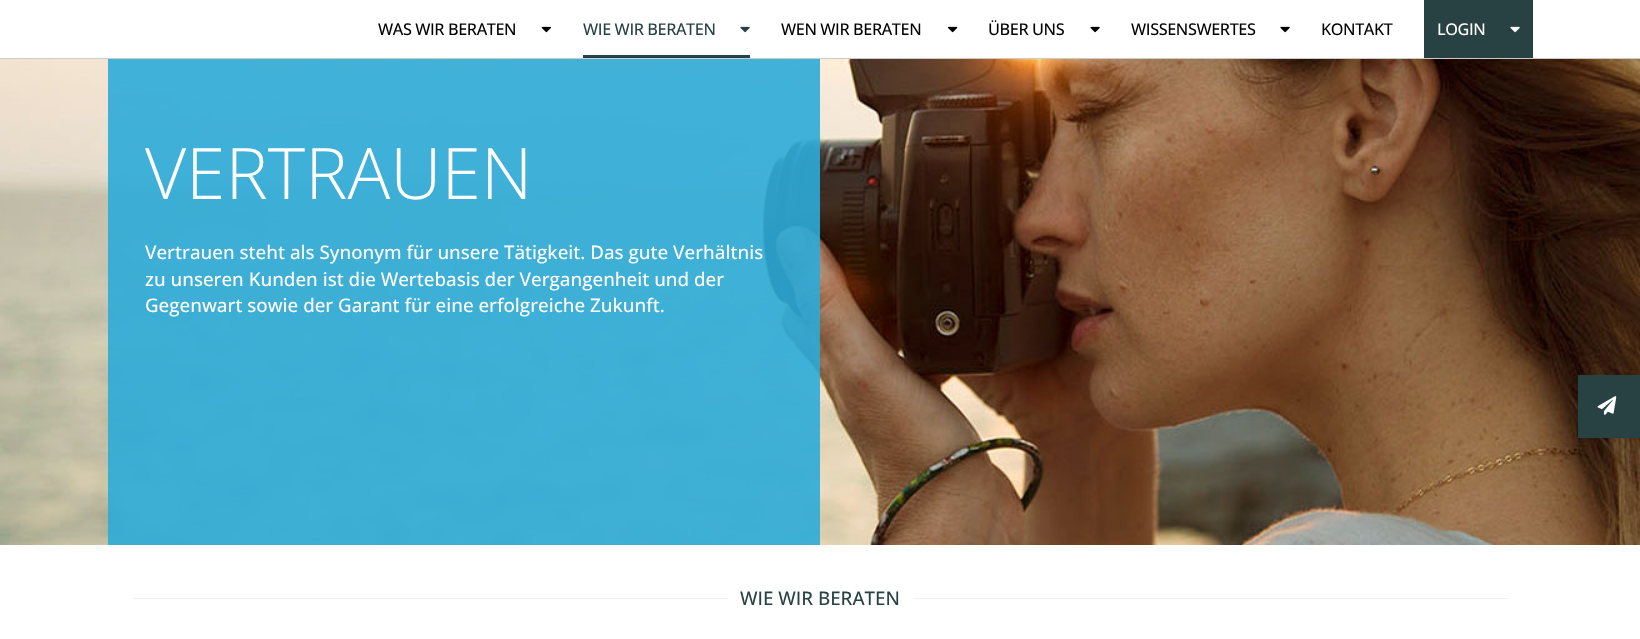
<svg xmlns="http://www.w3.org/2000/svg" width="1640" height="639" viewBox="0 0 1640 639">
  <rect width="100%" height="100%" fill="rgb(255,255,255)"/>
  <rect x="0" y="58" width="1640" height="1" fill="rgb(203,203,203)"/>
  <text x="378" y="35" font-family="Open Sans" font-size="16.25" font-weight="500" letter-spacing="-0.4" fill="rgb(0,0,0)">WAS WIR BERATEN</text>
  <image x="541" y="26" width="10" height="7" href="pic1.png"/>
  <text x="583" y="35" font-family="Open Sans" font-size="16.25" font-weight="500" letter-spacing="-0.4" fill="rgb(40,66,67)">WIE WIR BERATEN</text>
  <image x="740" y="26" width="10" height="7" href="pic2.png"/>
  <rect x="583" y="55" width="167" height="3" fill="rgb(40,66,67)"/>
  <text x="781" y="35" font-family="Open Sans" font-size="16.25" font-weight="500" letter-spacing="-0.4" fill="rgb(0,0,0)">WEN WIR BERATEN</text>
  <image x="947" y="26" width="11" height="7" href="pic3.png"/>
  <text x="988" y="35" font-family="Open Sans" font-size="16.25" font-weight="500" letter-spacing="-0.4" fill="rgb(0,0,0)">ÜBER UNS</text>
  <image x="1090" y="26" width="10" height="7" href="pic4.png"/>
  <text x="1131" y="35" font-family="Open Sans" font-size="16.25" font-weight="500" letter-spacing="-0.4" fill="rgb(0,0,0)">WISSENSWERTES</text>
  <image x="1280" y="26" width="10" height="7" href="pic4.png"/>
  <text x="1321" y="35" font-family="Open Sans" font-size="16.25" font-weight="500" letter-spacing="-0.4" fill="rgb(0,0,0)">KONTAKT</text>
  <rect x="1424" y="0" width="109" height="58" fill="rgb(40,66,67)"/>
  <text x="1437" y="35" font-family="Open Sans" font-size="16.25" font-weight="500" letter-spacing="-0.4" fill="rgb(255,255,255)">LOGIN</text>
  <image x="1510" y="26" width="10" height="7" href="pic5.png"/>
  <image x="0" y="59" width="1640" height="486" href="pic6.png"/>
  <rect x="108" y="59" width="712" height="486" fill="rgba(44,171,216,0.9)"/>
  <text x="145" y="199" font-family="Open Sans" font-size="71.25" font-weight="300" fill="rgb(255,255,255)">VERTRAUEN</text>
  <g font-family="Open Sans" font-size="18.75" font-weight="500" fill="rgb(255,255,255)">
    <text>
      <tspan x="145" y="259">Vertrauen steht als Synonym für unsere Tätigkeit. Das gute Verhältnis</tspan>
      <tspan x="145" y="286">zu unseren Kunden ist die Wertebasis der Vergangenheit und der</tspan>
      <tspan x="145" y="312">Gegenwart sowie der Garant für eine erfolgreiche Zukunft.</tspan>
    </text>
  </g>
  <rect x="133" y="598" width="595" height="1" fill="rgb(240,240,240)"/>
  <text x="740" y="605" font-family="Open Sans" font-size="18.75" font-weight="500" fill="rgb(40,66,67)">WIE WIR BERATEN</text>
  <rect x="913" y="598" width="595" height="1" fill="rgb(240,240,240)"/>
  <rect x="1578" y="375" width="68" height="63" fill="rgba(0,0,0,0.2)" filter="blur(2px)"/>
  <rect x="1578" y="375" width="62" height="63" fill="rgb(40,66,67)"/>
  <image x="1597" y="396" width="20" height="19" href="pic7.png"/>
</svg>
